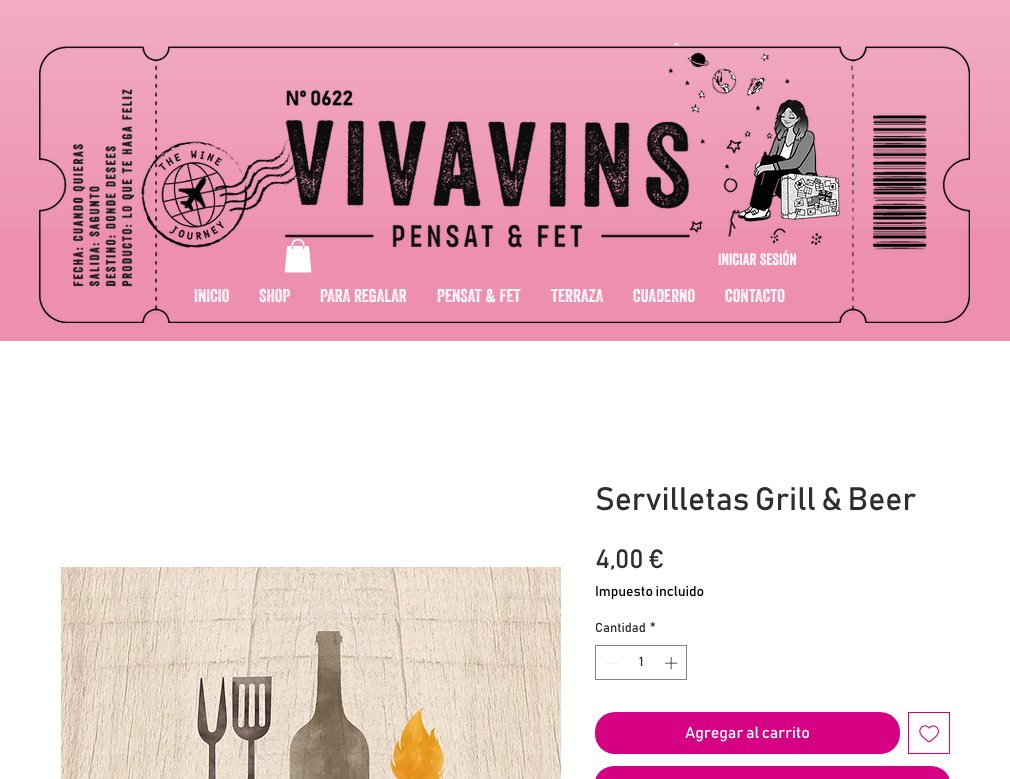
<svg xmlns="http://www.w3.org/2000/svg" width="1010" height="779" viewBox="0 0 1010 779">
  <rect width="100%" height="100%" fill="rgb(255,255,255)"/>
  <rect x="0" y="0" width="1010" height="341" fill="rgb(237,144,176)"/>
  <image x="0" y="0" width="1010" height="230" href="pic1.png"/>
  <image x="39" y="43" width="931" height="280" href="pic2.png"/>
  <image x="284" y="239" width="28" height="34" href="pic3.png"/>
  <text x="718" y="265" font-family="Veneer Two" font-size="16" fill="rgb(255,255,255)">Iniciar sesión</text>
  <g font-family="Veneer Two" font-size="18" fill="rgb(255,255,255)">
    <text x="194" y="302">INICIO</text>
    <text x="259" y="302">SHOP</text>
    <text x="320" y="302">PARA REGALAR</text>
    <text x="437" y="302">PENSAT &amp; FET</text>
    <text x="551" y="302">TERRAZA</text>
    <text x="633" y="302">CUADERNO</text>
    <text x="725" y="302">CONTACTO</text>
  </g>
  <image x="61" y="567" width="500" height="212" href="pic4.png"/>
  <text x="595" y="510" font-family="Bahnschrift" font-size="32" fill="rgb(47,46,46)">Servilletas Grill &amp; Beer</text>
  <text x="595" y="568" font-family="Bahnschrift" font-size="26" fill="rgb(47,46,46)">4,00 €</text>
  <text x="595" y="596" font-family="Bahnschrift" font-size="14" fill="rgb(0,0,0)">Impuesto incluido</text>
  <g font-family="Bahnschrift" font-size="13" fill="rgb(47,46,46)">
    <text x="595" y="632">Cantidad</text>
    <text x="650" y="632">*</text>
  </g>
  <rect x="595.5" y="645.5" width="91" height="34" fill="none" stroke="rgb(130,130,130)"/>
  <path d="M618 663V663.5H606V663Z" fill="rgb(227,227,227)" fill-rule="evenodd"/>
  <text x="639" y="666" font-family="Bahnschrift" font-size="13" fill="rgb(47,46,46)">1</text>
  <image x="665" y="657" width="13" height="13" href="pic5.png"/>
  <rect x="595" y="712" width="305" height="42" rx="20" fill="rgb(214,0,132)"/>
  <text x="685" y="738" font-family="Bahnschrift" font-size="16" fill="rgb(255,255,255)">Agregar al carrito</text>
  <rect x="908.5" y="712.5" width="41" height="41" fill="none" stroke="rgb(214,0,132)"/>
  <image x="919" y="725" width="20" height="18" href="pic6.png"/>
  <rect x="595" y="766" width="355" height="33" rx="20" fill="rgb(214,0,132)"/>
</svg>
